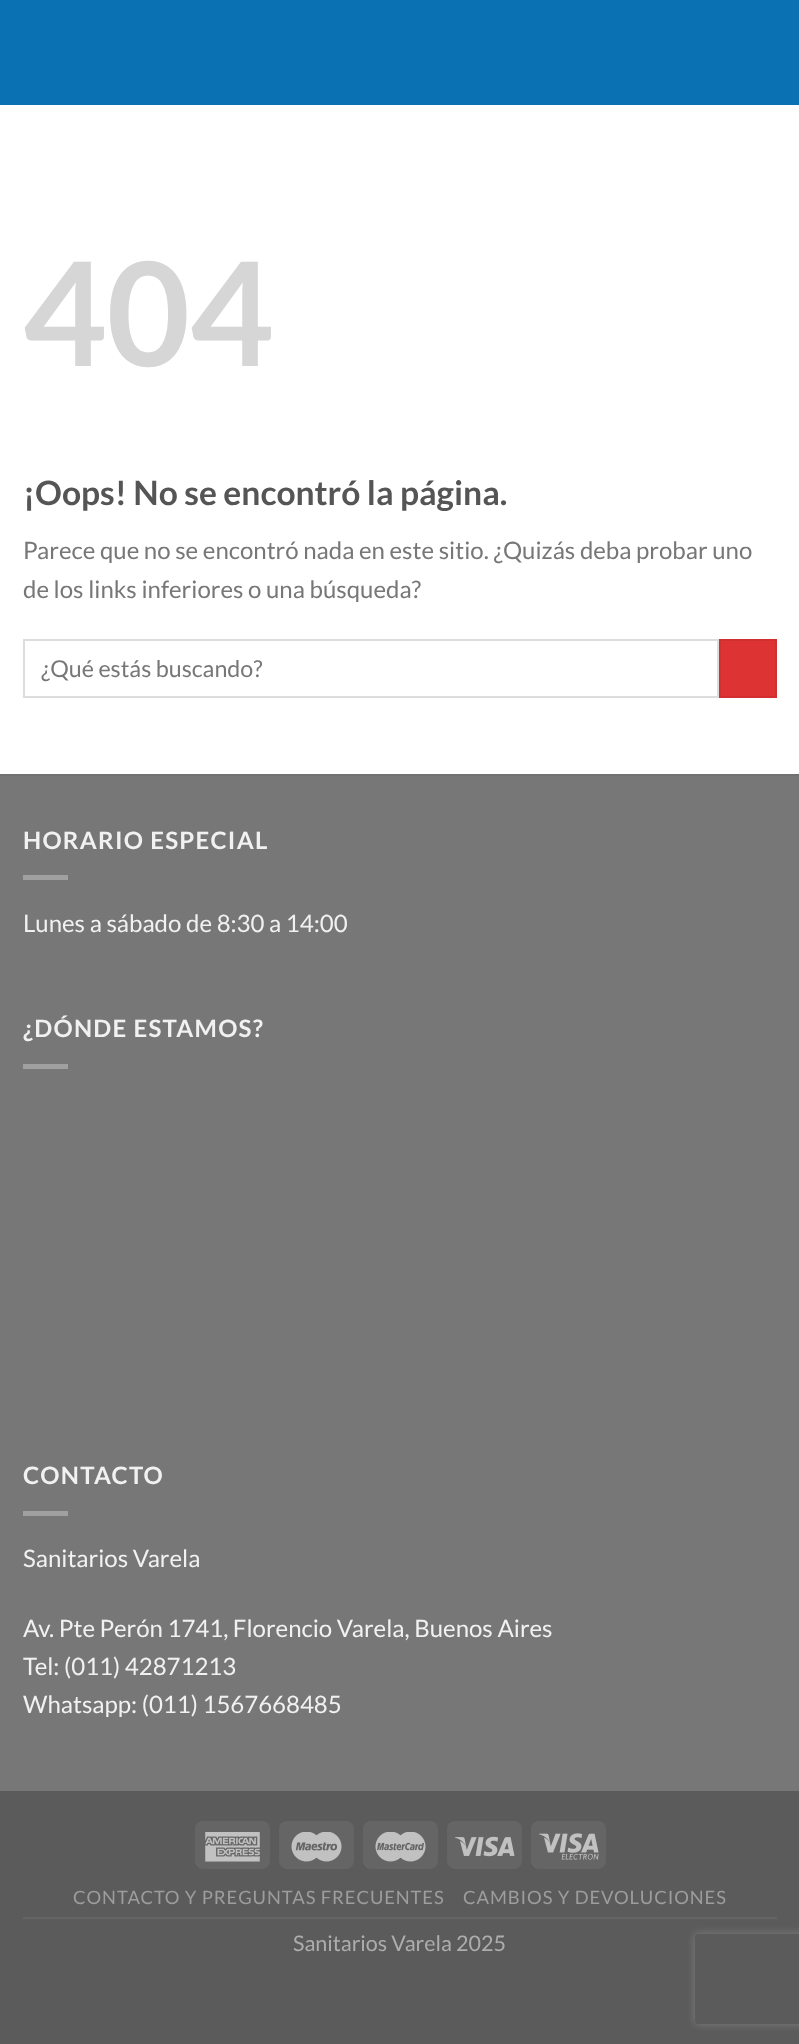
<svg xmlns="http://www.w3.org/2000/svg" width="799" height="2044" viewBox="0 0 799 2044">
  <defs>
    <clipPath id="clip1"><path d="M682 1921H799V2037H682ZM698 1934H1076C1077.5 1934 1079 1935.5 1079 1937V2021C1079 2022.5 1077.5 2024 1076 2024H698C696.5 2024 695 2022.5 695 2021V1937C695 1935.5 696.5 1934 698 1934Z" clip-rule="evenodd"/></clipPath>
  </defs>
  <rect width="100%" height="100%" fill="rgb(91,91,91)"/>
  <rect x="0" y="105" width="799" height="669" fill="rgb(255,255,255)"/>
  <rect x="0" y="0" width="799" height="105" fill="rgb(10,113,179)"/>
  <text x="23" y="366" font-family="Lato" font-size="144" font-weight="bold" fill="rgb(214,214,214)">404</text>
  <text x="23" y="505" font-family="Lato" font-size="33.6" font-weight="bold" fill="rgb(85,85,85)">¡Oops! No se encontró la página.</text>
  <g font-family="Lato" font-size="24" fill="rgb(119,119,119)">
    <text>
      <tspan x="23" y="559">Parece que no se encontró nada en este sitio. ¿Quizás deba probar uno</tspan>
      <tspan x="23" y="598">de los links inferiores o una búsqueda?</tspan>
    </text>
  </g>
  <rect x="24" y="640" width="694" height="57" fill="none" stroke="rgb(221,221,221)" stroke-width="2"/>
  <text x="41" y="677" font-family="Lato" font-size="23.25" fill="rgb(119,119,119)">¿Qué estás buscando?</text>
  <rect x="720" y="640" width="56" height="57" fill="rgb(221,51,51)" stroke="rgb(210,48,48)" stroke-width="2"/>
  <rect x="0" y="776" width="799" height="1015" fill="rgb(119,119,119)"/>
  <rect x="0" y="774" width="799" height="2" fill="rgb(113,113,113)"/>
  <text x="23" y="849" font-family="Lato" font-size="24" font-weight="bold" letter-spacing="1.25" fill="rgb(241,241,241)">HORARIO ESPECIAL</text>
  <rect x="23" y="875" width="45" height="5" fill="rgb(160,160,160)"/>
  <text x="23" y="932" font-family="Lato" font-size="24" fill="rgb(241,241,241)">Lunes a sábado de 8:30 a 14:00</text>
  <text x="23" y="1037" font-family="Lato" font-size="24" font-weight="bold" letter-spacing="1.25" fill="rgb(241,241,241)">¿DÓNDE ESTAMOS?</text>
  <rect x="23" y="1064" width="45" height="5" fill="rgb(160,160,160)"/>
  <text x="23" y="1484" font-family="Lato" font-size="24" font-weight="bold" letter-spacing="1.25" fill="rgb(241,241,241)">CONTACTO</text>
  <rect x="23" y="1511" width="45" height="5" fill="rgb(160,160,160)"/>
  <g font-family="Lato" font-size="24" fill="rgb(241,241,241)">
    <text x="23" y="1567">Sanitarios Varela</text>
    <text>
      <tspan x="23" y="1637">Av. Pte Perón 1741, Florencio Varela, Buenos Aires</tspan>
      <tspan x="23" y="1675">Tel: (011) 42871213</tspan>
      <tspan x="23" y="1713">Whatsapp: (011) 1567668485</tspan>
    </text>
  </g>
  <rect x="195" y="1821" width="75" height="48" rx="8" fill="rgb(101,101,101)"/>
  <image x="205" y="1832" width="55" height="30" href="pic1.png"/>
  <rect x="279" y="1821" width="75" height="48" rx="8" fill="rgb(101,101,101)"/>
  <image x="291" y="1832" width="51" height="30" href="pic2.png"/>
  <rect x="363" y="1821" width="75" height="48" rx="8" fill="rgb(101,101,101)"/>
  <image x="375" y="1832" width="51" height="30" href="pic3.png"/>
  <rect x="447" y="1821" width="75" height="48" rx="8" fill="rgb(101,101,101)"/>
  <image x="455" y="1836" width="60" height="21" href="pic4.png"/>
  <rect x="531" y="1821" width="75" height="48" rx="8" fill="rgb(101,101,101)"/>
  <image x="539" y="1833" width="60" height="27" href="pic5.png"/>
  <rect x="23" y="1917" width="754" height="2" fill="rgb(101,101,101)"/>
  <g font-family="Lato" font-size="18.4" letter-spacing="0.9" fill="rgb(157,157,157)">
    <text x="73" y="1904">CONTACTO Y PREGUNTAS FRECUENTES</text>
    <text x="463" y="1904">CAMBIOS Y DEVOLUCIONES</text>
  </g>
  <text x="293" y="1951" font-family="Lato" font-size="21.5" fill="rgb(173,173,173)">Sanitarios Varela 2025</text>
  <g clip-path="url(#clip1)">
    <rect x="695" y="1934" width="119" height="90" rx="3" fill="rgb(128,128,128)" filter="blur(4px)"/>
  </g>
</svg>
